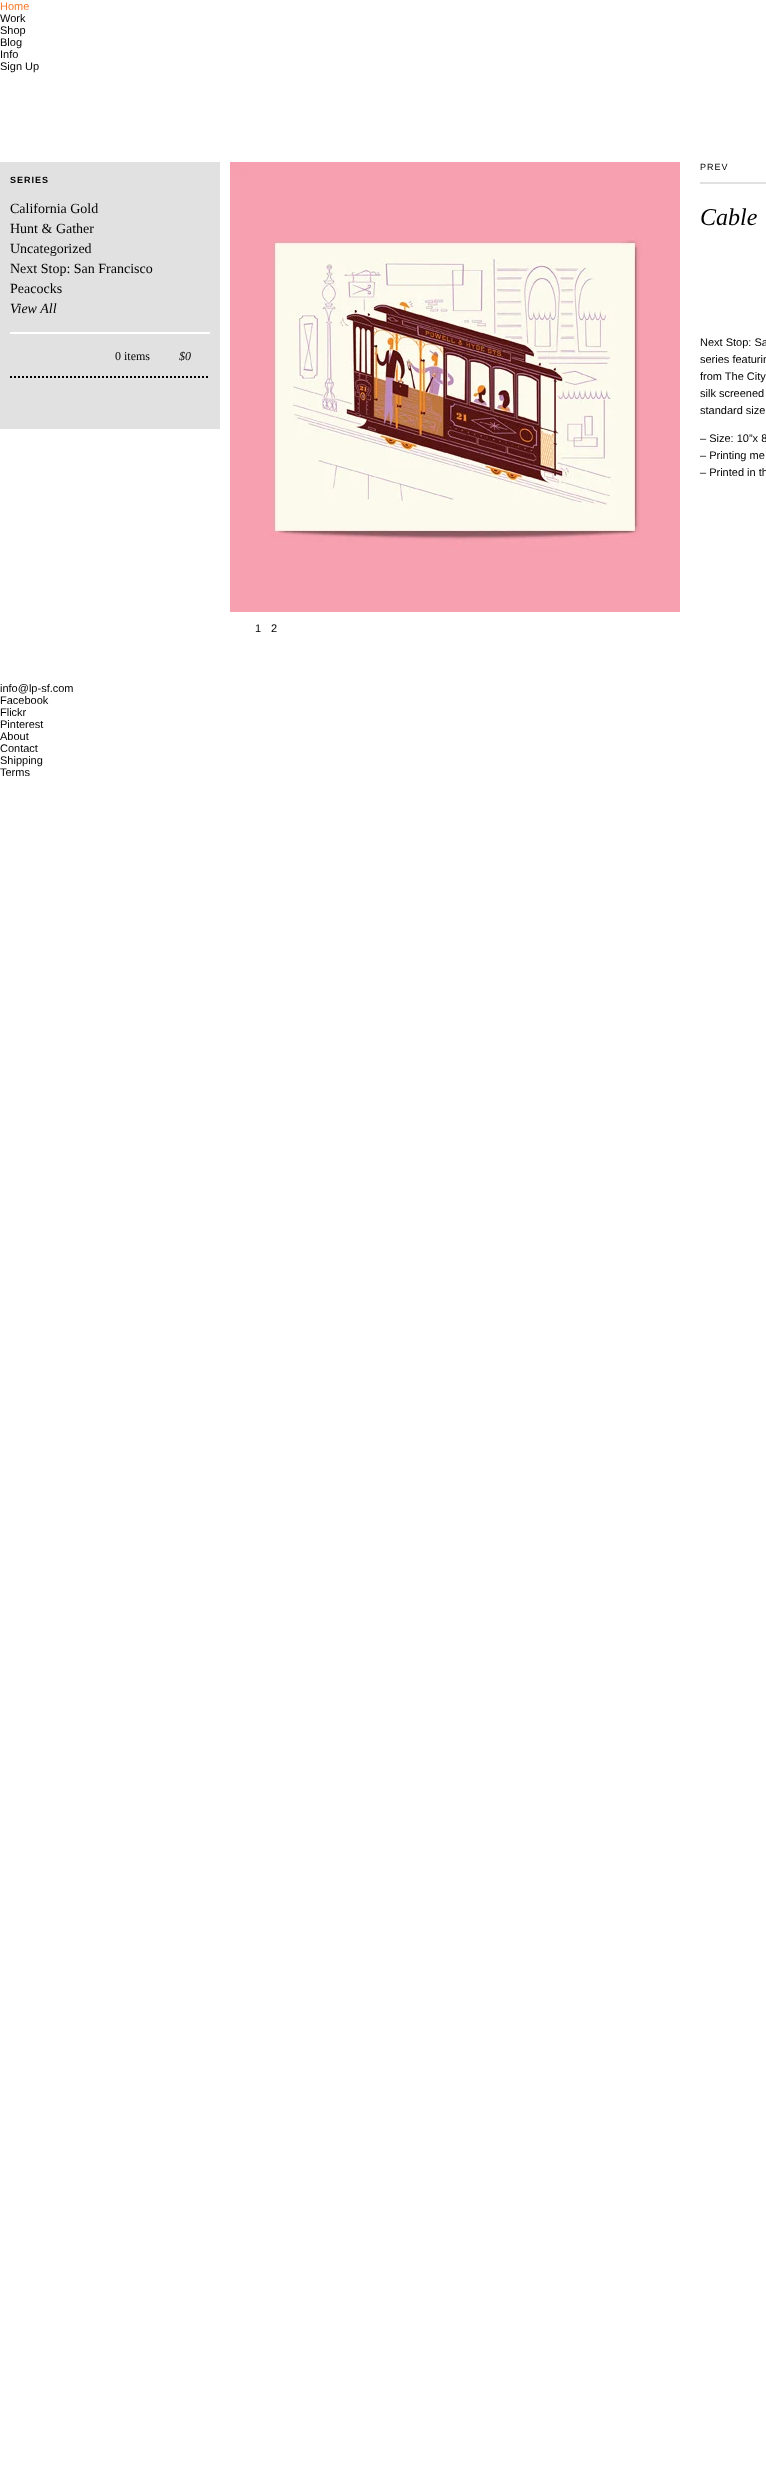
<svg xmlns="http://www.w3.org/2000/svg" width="766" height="2473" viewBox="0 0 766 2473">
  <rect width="100%" height="100%" fill="rgb(255,255,255)"/>
  <text x="0" y="10" font-family="Liberation Sans" font-size="11" fill="rgb(247,121,40)">Home</text>
  <g font-family="Liberation Sans" font-size="11" fill="rgb(0,0,0)">
    <text>
      <tspan x="0" y="22">Work</tspan>
      <tspan x="0" y="34">Shop</tspan>
      <tspan x="0" y="46">Blog</tspan>
      <tspan x="0" y="58">Info</tspan>
      <tspan x="0" y="70">Sign Up</tspan>
    </text>
  </g>
  <rect x="0" y="162" width="220" height="267" fill="rgb(225,225,225)"/>
  <text x="10" y="183" font-family="Liberation Sans" font-size="9" font-weight="bold" letter-spacing="1" fill="rgb(0,0,0)">SERIES</text>
  <g font-family="Liberation Serif" font-size="14" fill="rgb(0,0,0)">
    <text>
      <tspan x="10" y="213">California Gold</tspan>
      <tspan x="10" y="233">Hunt &amp; Gather</tspan>
      <tspan x="10" y="253">Uncategorized</tspan>
      <tspan x="10" y="273">Next Stop: San Francisco</tspan>
      <tspan x="10" y="293">Peacocks</tspan>
    </text>
  </g>
  <text x="10" y="313" font-family="Liberation Serif" font-size="14" font-style="italic" fill="rgb(0,0,0)">View All</text>
  <rect x="10" y="332" width="200" height="2" fill="rgb(255,255,255)"/>
  <path d="M10 377H210" fill="none" stroke="rgb(0,0,0)" stroke-width="2" stroke-dasharray="2 2"/>
  <text x="115" y="360" font-family="Liberation Serif" font-size="12" fill="rgb(0,0,0)">0 items</text>
  <text x="179" y="360" font-family="Liberation Serif" font-size="12" font-style="italic" fill="rgb(0,0,0)">$0</text>
  <rect x="700" y="182" width="66" height="2" fill="rgb(225,225,225)"/>
  <text x="700" y="170" font-family="Liberation Sans" font-size="9" letter-spacing="1" fill="rgb(0,0,0)">PREV</text>
  <text x="700" y="225" font-family="Liberation Serif" font-size="24" font-style="italic" fill="rgb(0,0,0)">Cable</text>
  <g font-family="Liberation Sans" font-size="11" fill="rgb(0,0,0)">
    <text>
      <tspan x="700" y="346">Next Stop: Sa</tspan>
      <tspan x="700" y="363">series featurin</tspan>
      <tspan x="700" y="380">from The City</tspan>
      <tspan x="700" y="397">silk screened</tspan>
      <tspan x="700" y="414">standard size</tspan>
    </text>
    <text>
      <tspan x="700" y="442">– Size: 10”x 8</tspan>
      <tspan x="700" y="459">– Printing me</tspan>
      <tspan x="700" y="476">– Printed in th</tspan>
    </text>
  </g>
  <image x="230" y="162" width="450" height="450" href="pic1.png"/>
  <g font-family="Liberation Sans" font-size="11" fill="rgb(0,0,0)">
    <text x="255" y="632">1</text>
    <text x="271" y="632">2</text>
    <text>
      <tspan x="0" y="692">info@lp-sf.com</tspan>
      <tspan x="0" y="704">Facebook</tspan>
      <tspan x="0" y="716">Flickr</tspan>
      <tspan x="0" y="728">Pinterest</tspan>
      <tspan x="0" y="740">About</tspan>
      <tspan x="0" y="752">Contact</tspan>
      <tspan x="0" y="764">Shipping</tspan>
      <tspan x="0" y="776">Terms</tspan>
    </text>
  </g>
</svg>
